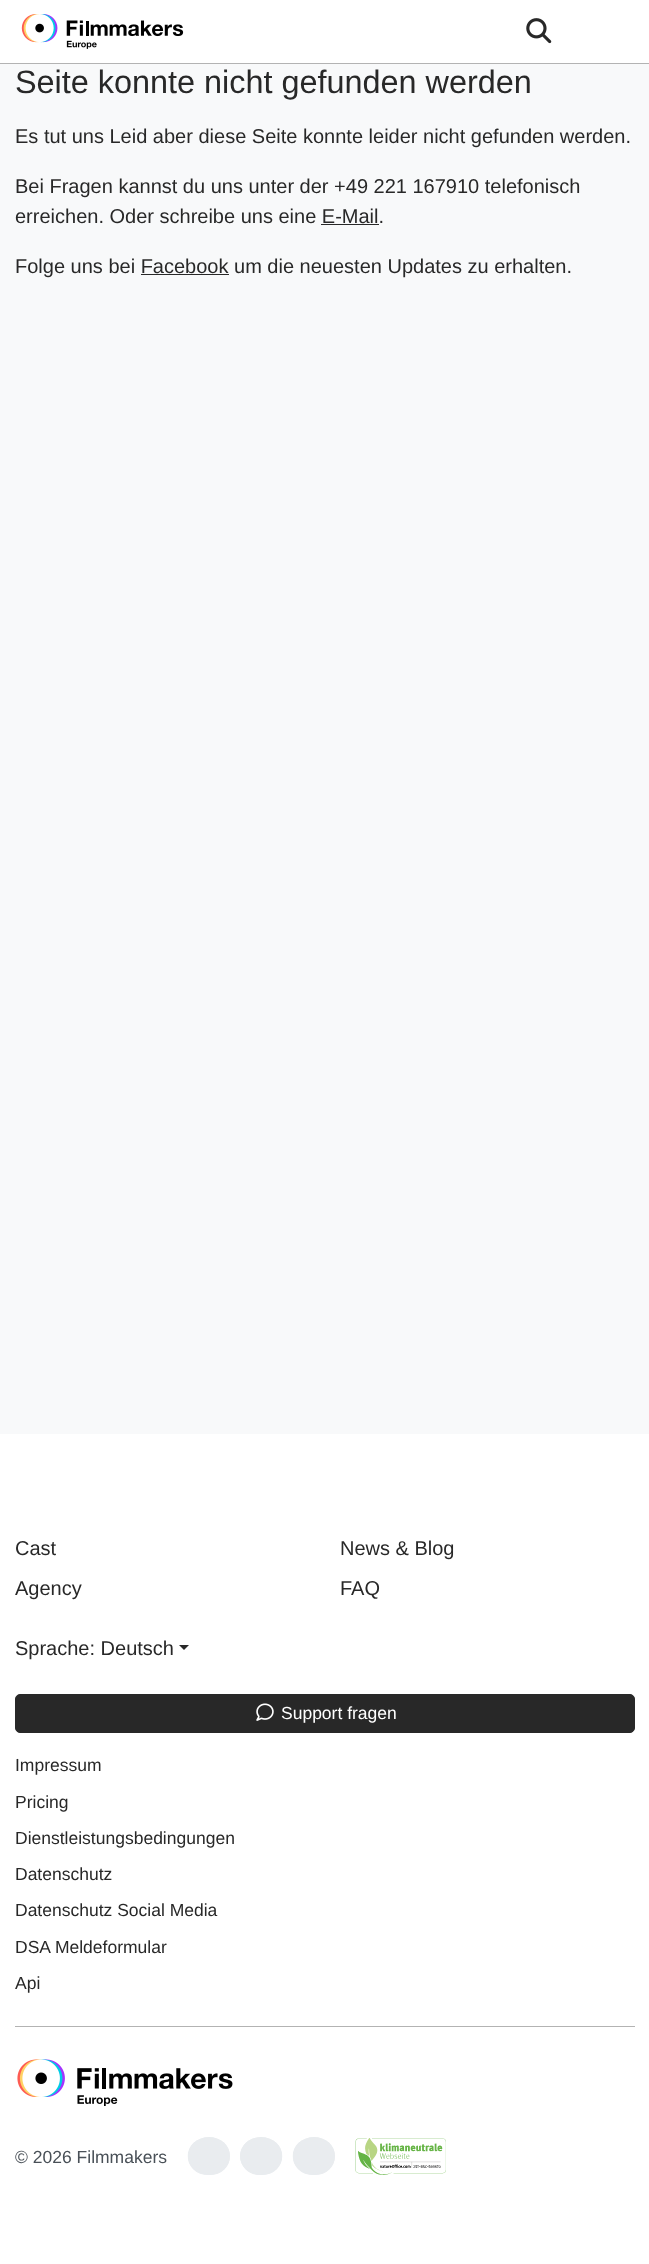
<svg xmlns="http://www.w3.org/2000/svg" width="649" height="2264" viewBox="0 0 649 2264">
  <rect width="100%" height="100%" fill="rgb(248,249,250)"/>
  <rect x="0" y="0" width="649" height="63" fill="rgb(255,255,255)"/>
  <rect x="0" y="63" width="649" height="1" fill="rgb(179,179,179)"/>
  <image x="21" y="14" width="163" height="35" href="pic1.png"/>
  <image x="526" y="18" width="26" height="26" href="pic2.png"/>
  <text x="15" y="93" font-family="Liberation Sans" font-size="32.4" fill="rgb(40,40,40)">Seite konnte nicht gefunden werden</text>
  <g font-family="Liberation Sans" font-size="20" fill="rgb(40,40,40)">
    <text x="15" y="143">Es tut uns Leid aber diese Seite konnte leider nicht gefunden werden.</text>
    <text>
      <tspan x="15" y="193">Bei Fragen kannst du uns unter der +49 221 167910 telefonisch</tspan>
      <tspan x="15" y="223">erreichen. Oder schreibe uns eine E-Mail.</tspan>
    </text>
  </g>
  <rect x="321" y="224" width="58" height="1" fill="rgb(40,40,40)"/>
  <text x="15" y="273" font-family="Liberation Sans" font-size="20" fill="rgb(40,40,40)">Folge uns bei Facebook um die neuesten Updates zu erhalten.</text>
  <rect x="141" y="274" width="88" height="1" fill="rgb(40,40,40)"/>
  <rect x="0" y="1434" width="649" height="830" fill="rgb(255,255,255)"/>
  <g font-family="Liberation Sans" font-size="20" fill="rgb(40,40,40)">
    <text x="15" y="1555">Cast</text>
    <text x="15" y="1595">Agency</text>
    <text x="340" y="1555">News &amp; Blog</text>
    <text x="340" y="1595">FAQ</text>
    <text x="15" y="1655">Sprache: Deutsch</text>
  </g>
  <path d="M179 1645H189L184 1650Z" fill="rgb(40,40,40)"/>
  <rect x="15.5" y="1694.5" width="619" height="38" rx="4.5" fill="rgb(40,40,40)" stroke="rgb(40,40,40)"/>
  <image x="256" y="1703" width="18" height="18" href="pic3.png"/>
  <text x="281" y="1719" font-family="Liberation Sans" font-size="17.5" fill="rgb(255,255,255)">Support fragen</text>
  <g font-family="Liberation Sans" font-size="17.5" fill="rgb(40,40,40)">
    <text x="15" y="1771">Impressum</text>
    <text x="15" y="1808">Pricing</text>
    <text x="15" y="1844">Dienstleistungsbedingungen</text>
    <text x="15" y="1880">Datenschutz</text>
    <text x="15" y="1916">Datenschutz Social Media</text>
    <text x="15" y="1953">DSA Meldeformular</text>
    <text x="15" y="1989">Api</text>
  </g>
  <rect x="15" y="2026" width="620" height="1" fill="rgb(179,179,179)"/>
  <image x="17" y="2059" width="216" height="47" href="pic4.png"/>
  <text x="15" y="2163" font-family="Liberation Sans" font-size="17.5" fill="rgb(73,80,87)">© 2026 Filmmakers</text>
  <ellipse cx="209" cy="2156" rx="21" ry="19" fill="rgb(233,236,239)"/>
  <path d="M209 2138C236 2138 236 2174.5 209 2174.5C181.5 2174.5 181.5 2138 209 2138Z" fill="none" stroke="rgb(233,236,239)" stroke-width="1.2"/>
  <ellipse cx="261" cy="2156" rx="21" ry="19" fill="rgb(233,236,239)"/>
  <path d="M261 2138C288.5 2138 288.5 2174.5 261 2174.5C234 2174.5 234 2138 261 2138Z" fill="none" stroke="rgb(233,236,239)" stroke-width="1.2"/>
  <ellipse cx="314" cy="2156" rx="21" ry="19" fill="rgb(233,236,239)"/>
  <path d="M314 2138C341 2138 341 2174.5 314 2174.5C286.5 2174.5 286.5 2138 314 2138Z" fill="none" stroke="rgb(233,236,239)" stroke-width="1.2"/>
  <image x="355" y="2138" width="91" height="37" href="pic5.png"/>
</svg>
